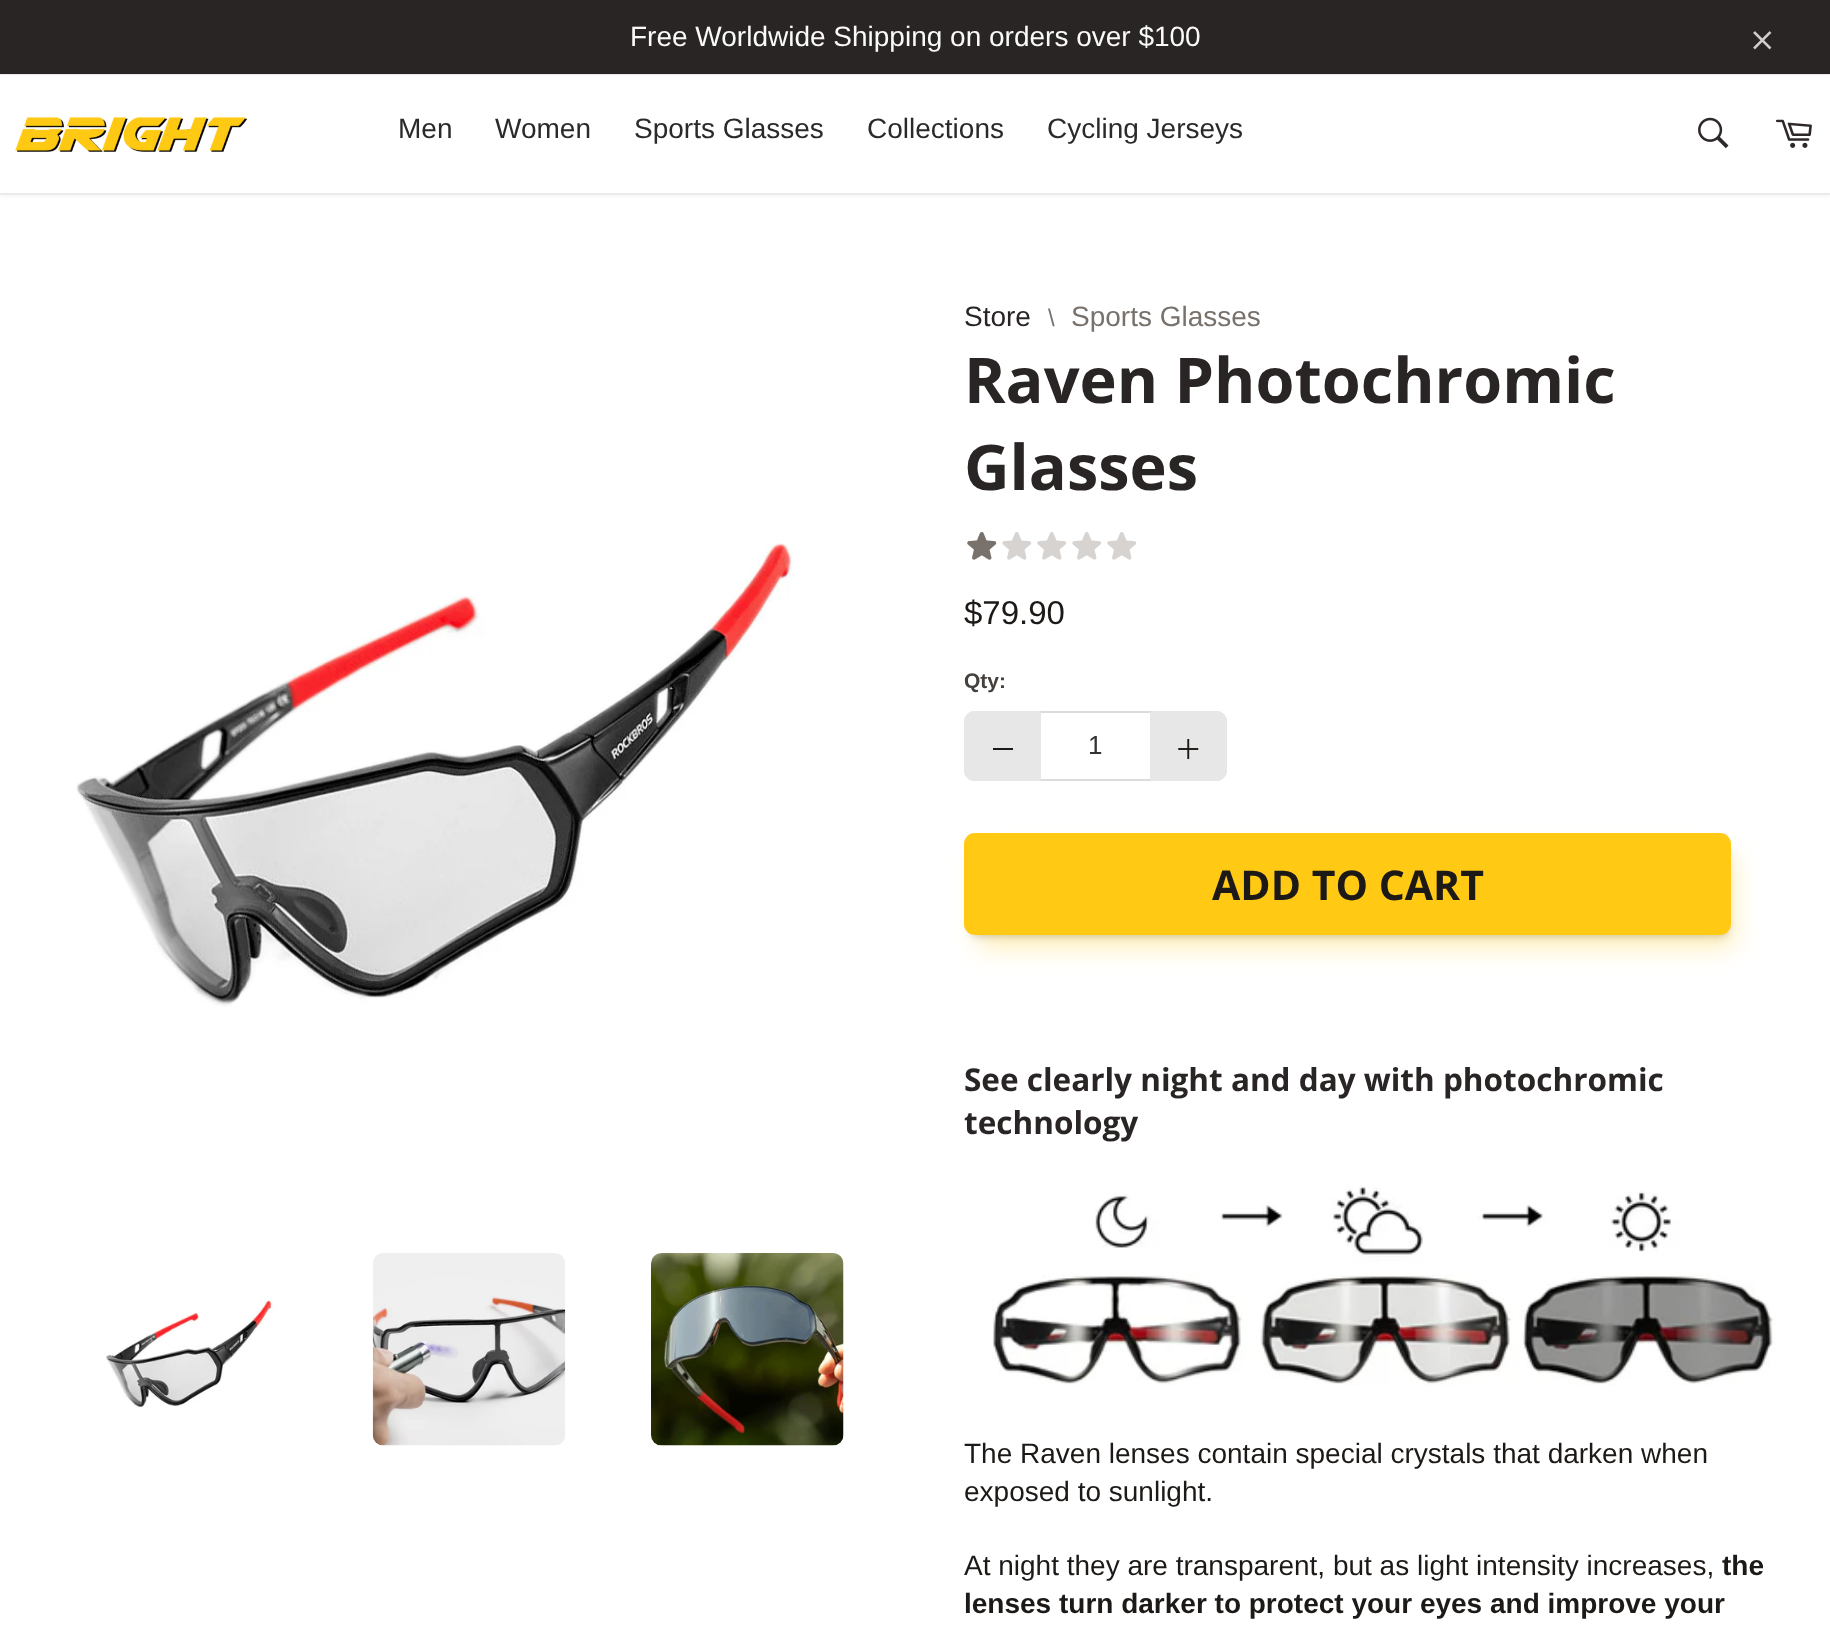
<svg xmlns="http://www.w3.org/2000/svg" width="1830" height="1630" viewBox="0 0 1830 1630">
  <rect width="100%" height="100%" fill="rgb(255,255,255)"/>
  <rect x="0" y="0" width="1830" height="74" fill="rgb(41,37,36)"/>
  <rect x="0" y="74" width="1830" height="1" fill="rgb(236,235,235)"/>
  <text x="630" y="46" font-family="Liberation Sans" font-size="28" fill="rgb(250,250,249)">Free Worldwide Shipping on orders over $100</text>
  <image x="1753" y="31" width="19" height="19" href="pic1.png"/>
  <rect x="0" y="77" width="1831" height="119" fill="rgba(0,0,0,0.05)" filter="blur(2px)"/>
  <rect x="0" y="75" width="1830" height="118" fill="rgb(255,255,255)"/>
  <rect x="0" y="193" width="1830" height="2" fill="rgb(236,235,235)"/>
  <image x="15" y="117" width="233" height="35" href="pic2.png"/>
  <g font-family="Liberation Sans" font-size="28" fill="rgb(42,42,42)">
    <text x="398" y="138">Men</text>
    <text x="495" y="138">Women</text>
    <text x="634" y="138">Sports Glasses</text>
    <text x="867" y="138">Collections</text>
    <text x="1047" y="138">Cycling Jerseys</text>
  </g>
  <image x="1698" y="117" width="31" height="32" href="pic3.png"/>
  <image x="1776" y="119" width="36" height="29" href="pic4.png"/>
  <text x="964" y="326" font-family="Liberation Sans" font-size="28" fill="rgb(41,37,36)">Store</text>
  <text x="1048" y="326" font-family="Liberation Sans" font-size="24" fill="rgb(120,113,108)">\</text>
  <text x="1071" y="326" font-family="Liberation Sans" font-size="28" fill="rgb(120,113,108)">Sports Glasses</text>
  <image x="76" y="543" width="717" height="464" href="pic5.png"/>
  <image x="106" y="1300" width="170" height="108" href="pic6.png"/>
  <image x="372" y="1253" width="194" height="193" href="pic7.png"/>
  <image x="651" y="1253" width="193" height="193" href="pic8.png"/>
  <g font-family="Open Sans" font-size="63" font-weight="bold" fill="rgb(41,37,36)">
    <text>
      <tspan x="964" y="403">Raven Photochromic</tspan>
      <tspan x="964" y="490">Glasses</tspan>
    </text>
  </g>
  <image x="967" y="532" width="30" height="28" href="pic9.png"/>
  <image x="1002" y="532" width="30" height="28" href="pic9.png"/>
  <image x="1037" y="532" width="30" height="28" href="pic9.png"/>
  <image x="1072" y="532" width="30" height="28" href="pic9.png"/>
  <image x="1107" y="532" width="30" height="28" href="pic9.png"/>
  <image x="967" y="532" width="30" height="28" href="pic10.png"/>
  <text x="964" y="624" font-family="Liberation Sans" font-size="33" fill="rgb(28,25,23)">$79.90</text>
  <text x="964" y="688" font-family="Liberation Sans" font-size="21" font-weight="bold" fill="rgb(68,64,60)">Qty:</text>
  <rect x="965" y="712" width="261" height="68" rx="10" fill="none" stroke="rgb(220,220,220)" stroke-width="2"/>
  <path d="M975 711H1039C1040 711 1041 712 1041 713V779C1041 780 1040 781 1039 781H975C969 781 964 776 964 770V722C964 716 969 711 975 711Z" fill="rgb(231,231,231)"/>
  <rect x="993" y="748" width="20" height="2" fill="rgb(28,25,23)"/>
  <text x="1088" y="754" font-family="Liberation Sans" font-size="26" fill="rgb(51,51,51)">1</text>
  <path d="M1152 711H1216C1222 711 1227 716 1227 722V770C1227 776 1222 781 1216 781H1152C1151 781 1150 780 1150 779V713C1150 712 1151 711 1152 711Z" fill="rgb(231,231,231)"/>
  <image x="1178" y="739" width="21" height="21" href="pic11.png"/>
  <rect x="973" y="847" width="753" height="88" rx="4" fill="rgba(0,0,0,0.31)" filter="blur(5px)"/>
  <rect x="978" y="856" width="756" height="91" rx="5" fill="rgba(255,201,20,0.31)" filter="blur(13px)"/>
  <rect x="964" y="833" width="767" height="102" rx="11" fill="rgb(255,201,20)"/>
  <text x="1212" y="900" font-family="Open Sans" font-size="41" font-weight="bold" fill="rgb(28,25,23)">ADD TO CART</text>
  <g font-family="Open Sans" font-size="31.5" font-weight="bold" fill="rgb(41,37,36)">
    <text>
      <tspan x="964" y="1091">See clearly night and day with photochromic</tspan>
      <tspan x="964" y="1134">technology</tspan>
    </text>
  </g>
  <image x="992" y="1185" width="784" height="201" href="pic12.png"/>
  <g font-family="Liberation Sans" font-size="28" fill="rgb(28,25,23)">
    <text>
      <tspan x="964" y="1463">The Raven lenses contain special crystals that darken when</tspan>
      <tspan x="964" y="1501">exposed to sunlight.</tspan>
    </text>
    <text x="964" y="1575">At night they are transparent, but as light intensity increases,</text>
  </g>
  <g font-family="Liberation Sans" font-size="28" font-weight="bold" fill="rgb(28,25,23)">
    <text x="1722" y="1575">the</text>
    <text x="964" y="1613">lenses turn darker to protect your eyes and improve your</text>
  </g>
</svg>
